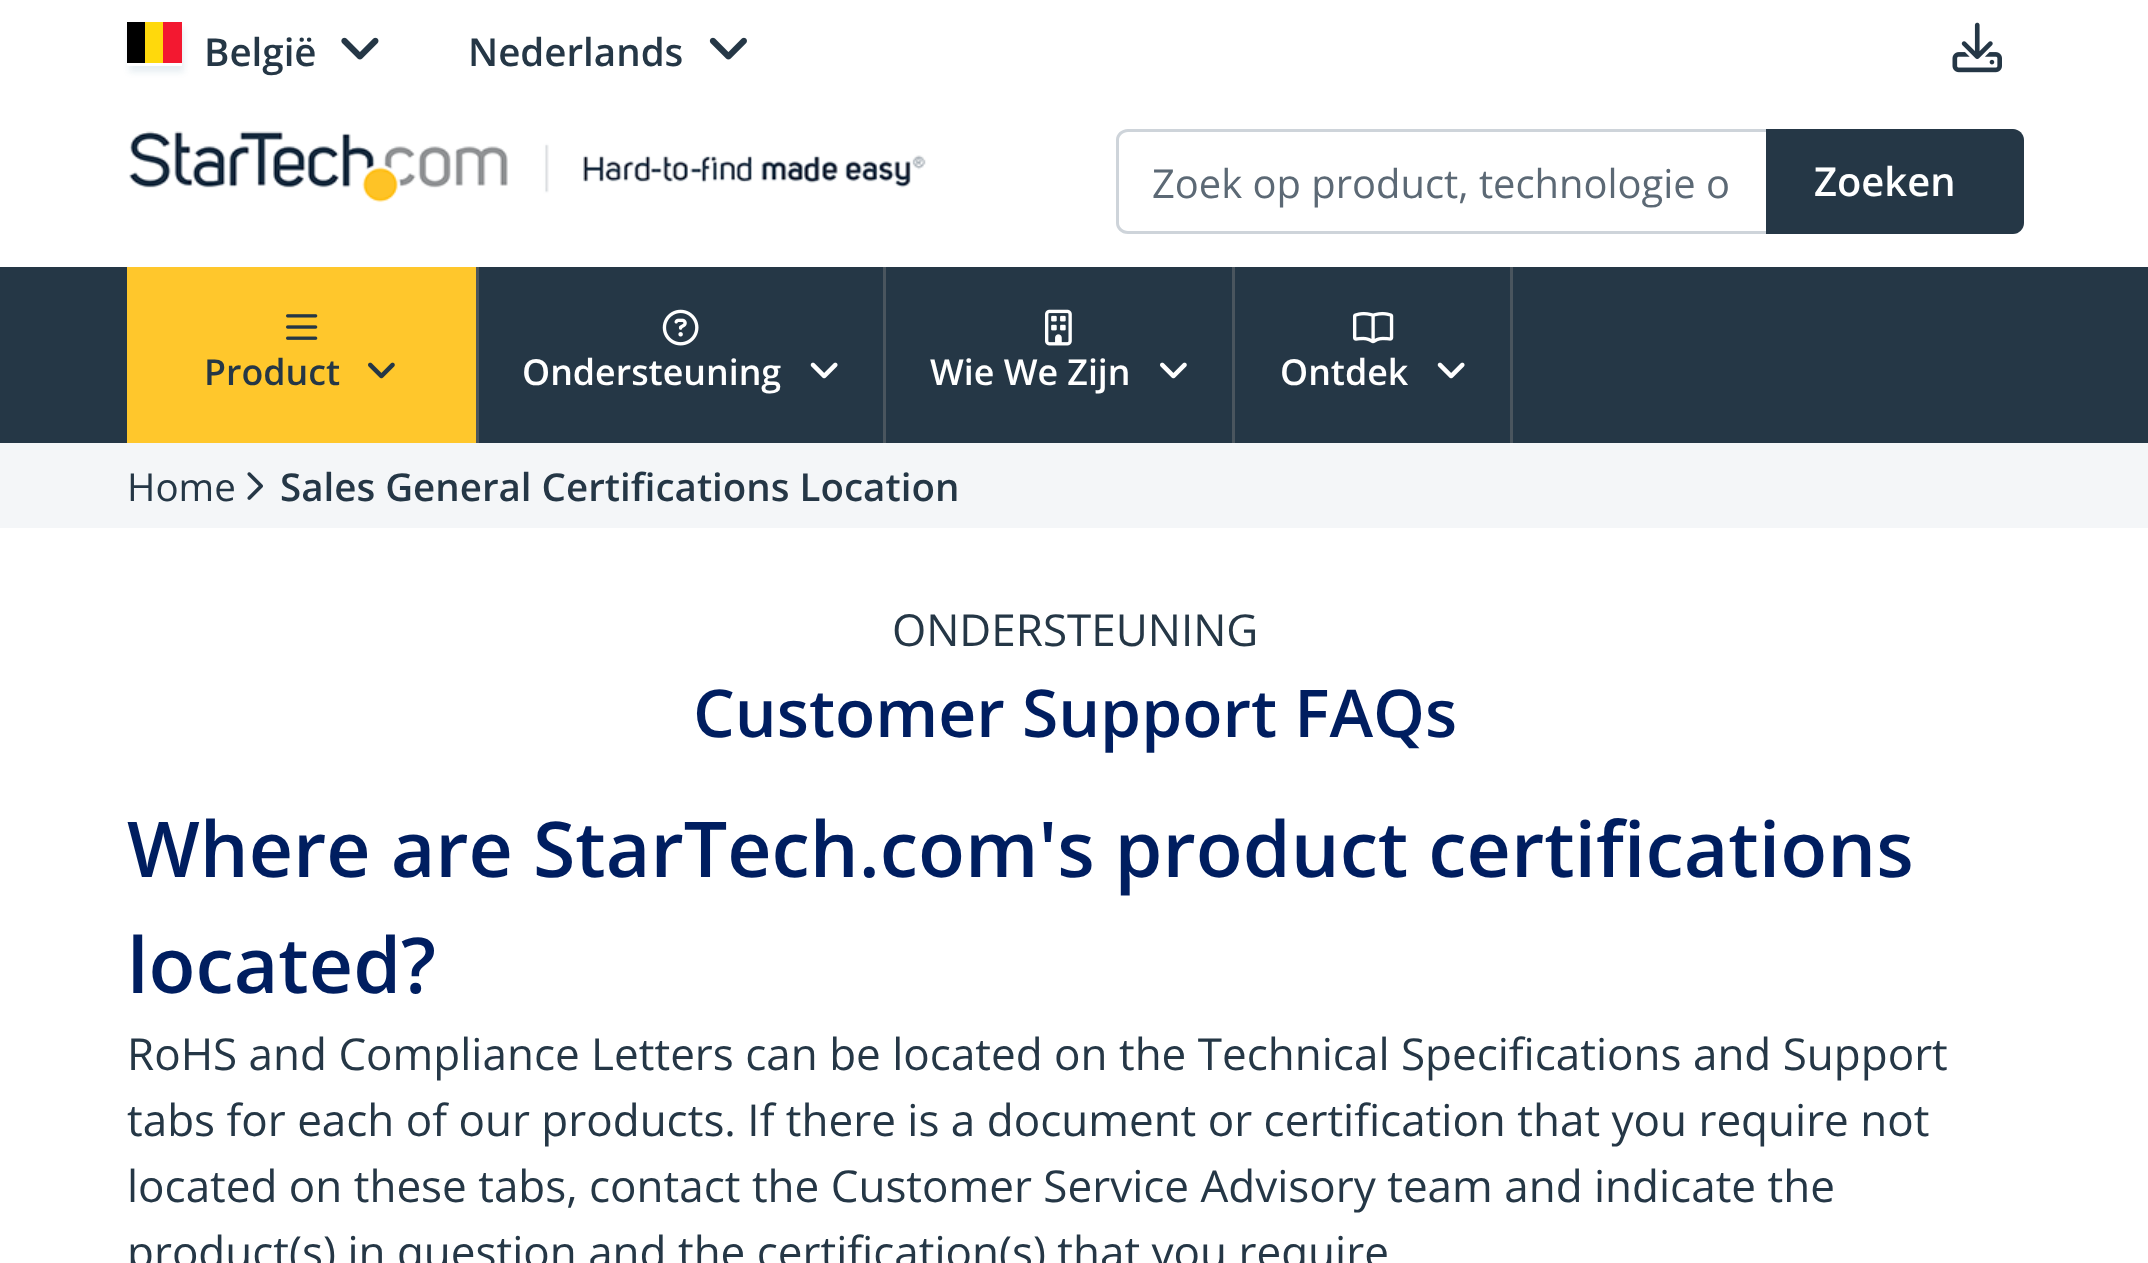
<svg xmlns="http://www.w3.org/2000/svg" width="2148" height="1263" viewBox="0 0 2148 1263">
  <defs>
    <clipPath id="clip1"><path d="M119 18H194V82H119ZM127 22H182V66H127Z" clip-rule="evenodd"/></clipPath>
  </defs>
  <rect width="100%" height="100%" fill="rgb(255,255,255)"/>
  <g clip-path="url(#clip1)">
    <rect x="129" y="28" width="55" height="44" fill="rgba(11,87,128,0.1)" filter="blur(3px)"/>
  </g>
  <rect x="127" y="22" width="18" height="41" fill="rgb(0,0,0)"/>
  <rect x="145" y="22" width="18" height="41" fill="rgb(255,217,12)"/>
  <rect x="163" y="22" width="19" height="41" fill="rgb(243,24,48)"/>
  <text x="204" y="66" font-family="Open Sans" font-size="38.5" font-weight="600" fill="rgb(37,55,70)">België</text>
  <image x="341" y="37" width="38" height="23" href="pic1.png"/>
  <text x="468" y="66" font-family="Open Sans" font-size="38.5" font-weight="600" fill="rgb(37,55,70)">Nederlands</text>
  <image x="709" y="37" width="38" height="23" href="pic2.png"/>
  <image x="1952" y="22" width="50" height="51" href="pic3.png"/>
  <image x="129" y="131" width="797" height="72" href="pic4.png"/>
  <path d="M1746 129H2013C2019 129 2024 134 2024 140V223C2024 229 2019 234 2013 234H1746Z" fill="rgb(37,55,70)"/>
  <path d="M1127 132H1766V231H1127C1122.5 231 1119 227.5 1119 223V140C1119 135.5 1122.5 132 1127 132Z" fill="rgb(255,255,255)"/>
  <path d="M1128 129H1766V234H1128C1121 234 1116 229 1116 223V140C1116 134 1121 129 1128 129ZM1128 132H1766V231H1128C1123 231 1119 227 1119 223V140C1119 136 1123 132 1128 132Z" fill="rgb(206,212,218)" fill-rule="evenodd"/>
  <text x="1152" y="198" font-family="Open Sans" font-size="39.9" fill="rgb(92,105,117)">Zoek op product, technologie o</text>
  <text x="1814" y="196" font-family="Open Sans" font-size="39.9" font-weight="600" fill="rgb(255,255,255)">Zoeken</text>
  <rect x="0" y="267" width="2148" height="176" fill="rgb(37,55,70)"/>
  <rect x="127" y="267" width="349" height="176" fill="rgb(255,199,44)"/>
  <rect x="476" y="267" width="3" height="176" fill="rgb(74,85,94)"/>
  <image x="286" y="314" width="32" height="26" href="pic5.png"/>
  <text x="204" y="385" font-family="Open Sans" font-size="35.75" font-weight="600" fill="rgb(37,55,70)">Product</text>
  <image x="368" y="362" width="27" height="17" href="pic6.png"/>
  <rect x="883" y="267" width="3" height="176" fill="rgb(74,85,94)"/>
  <image x="662" y="309" width="37" height="37" href="pic7.png"/>
  <text x="522" y="385" font-family="Open Sans" font-size="35.75" font-weight="600" fill="rgb(255,255,255)">Ondersteuning</text>
  <image x="810" y="362" width="28" height="17" href="pic8.png"/>
  <rect x="1232" y="267" width="3" height="176" fill="rgb(74,85,94)"/>
  <image x="1045" y="309" width="27" height="37" href="pic9.png"/>
  <text x="930" y="385" font-family="Open Sans" font-size="35.75" font-weight="600" fill="rgb(255,255,255)">Wie We Zijn</text>
  <image x="1160" y="362" width="27" height="17" href="pic10.png"/>
  <rect x="1510" y="267" width="3" height="176" fill="rgb(74,85,94)"/>
  <image x="1353" y="311" width="41" height="33" href="pic11.png"/>
  <text x="1280" y="385" font-family="Open Sans" font-size="35.75" font-weight="600" fill="rgb(255,255,255)">Ontdek</text>
  <image x="1437" y="362" width="28" height="17" href="pic8.png"/>
  <rect x="0" y="443" width="2148" height="85" fill="rgb(244,246,248)"/>
  <text x="127" y="501" font-family="Open Sans" font-size="38.5" fill="rgb(37,55,70)">Home</text>
  <image x="247" y="472" width="16" height="28" href="pic12.png"/>
  <text x="280" y="501" font-family="Open Sans" font-size="38.5" font-weight="600" fill="rgb(37,55,70)">Sales General Certifications Location</text>
  <text x="892" y="646" font-family="Open Sans" font-size="44" fill="rgb(37,55,70)">ONDERSTEUNING</text>
  <text x="693" y="737" font-family="Open Sans" font-size="66" font-weight="600" fill="rgb(0,30,96)">Customer Support FAQs</text>
  <g font-family="Open Sans" font-size="77" font-weight="600" fill="rgb(0,30,96)">
    <text>
      <tspan x="127" y="877">Where are StarTech.com's product certifications</tspan>
      <tspan x="127" y="993">located?</tspan>
    </text>
  </g>
  <g font-family="Open Sans" font-size="44" fill="rgb(37,55,70)">
    <text>
      <tspan x="127" y="1070">RoHS and Compliance Letters can be located on the Technical Specifications and Support</tspan>
      <tspan x="127" y="1136">tabs for each of our products. If there is a document or certification that you require not</tspan>
      <tspan x="127" y="1202">located on these tabs, contact the Customer Service Advisory team and indicate the</tspan>
      <tspan x="127" y="1268">product(s) in question and the certification(s) that you require</tspan>
    </text>
  </g>
</svg>
